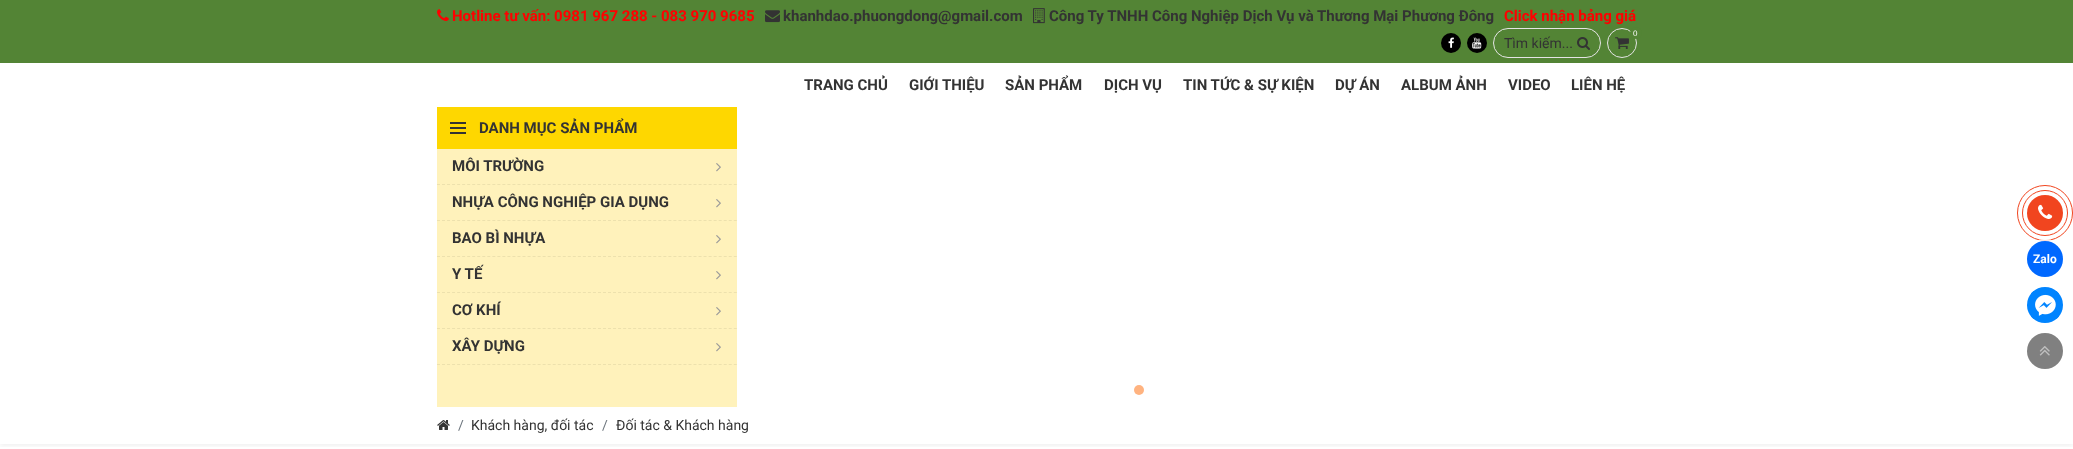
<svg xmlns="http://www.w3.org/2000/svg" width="2073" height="449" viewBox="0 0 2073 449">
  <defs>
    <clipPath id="clip1"><rect x="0" y="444" width="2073" height="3"/></clipPath>
  </defs>
  <rect width="100%" height="100%" fill="rgb(255,255,255)"/>
  <rect x="0" y="0" width="2073" height="63" fill="rgb(83,132,53)"/>
  <image x="437" y="9" width="12" height="12" href="pic1.png"/>
  <text x="452" y="21" font-family="Roboto" font-size="15" font-weight="bold" fill="rgb(255,0,0)">Hotline tư vấn: 0981 967 288 - 083 970 9685</text>
  <image x="765" y="10" width="15" height="13" href="pic2.png"/>
  <text x="783" y="21" font-family="Roboto" font-size="15" font-weight="bold" fill="rgb(51,51,51)">khanhdao.phuongdong@gmail.com</text>
  <image x="1033" y="8" width="12" height="16" href="pic3.png"/>
  <text x="1049" y="21" font-family="Roboto" font-size="15" font-weight="bold" fill="rgb(51,51,51)">Công Ty TNHH Công Nghiệp Dịch Vụ và Thương Mại Phương Đông</text>
  <text x="1504" y="21" font-family="Roboto" font-size="15" font-weight="bold" fill="rgb(255,0,0)">Click nhận bảng giá</text>
  <circle cx="1451" cy="43" r="10" fill="rgb(0,0,0)"/>
  <image x="1448" y="37" width="6" height="11" href="pic4.png"/>
  <circle cx="1477" cy="43" r="10" fill="rgb(0,0,0)"/>
  <image x="1472" y="37" width="10" height="12" href="pic5.png"/>
  <rect x="1493.5" y="28.5" width="107" height="29" rx="14.5" fill="none" stroke="rgb(228,228,228)"/>
  <text x="1504" y="48" font-family="Roboto" font-size="14" fill="rgb(51,51,51)">Tìm kiếm...</text>
  <image x="1577" y="37" width="13" height="13" href="pic6.png"/>
  <circle cx="1622" cy="43" r="14.5" fill="none" stroke="rgb(228,228,228)"/>
  <circle cx="1636" cy="33" r="6" fill="rgb(83,132,53)"/>
  <text x="1633" y="36" font-family="Liberation Sans" font-size="8" fill="rgb(255,255,255)">0</text>
  <image x="1615" y="37" width="14" height="12" href="pic7.png"/>
  <g font-family="Roboto" font-size="15" font-weight="bold" fill="rgb(51,51,51)">
    <text x="804" y="90">TRANG CHỦ</text>
    <text x="909" y="90">GIỚI THIỆU</text>
    <text x="1005" y="90">SẢN PHẨM</text>
    <text x="1104" y="90">DỊCH VỤ</text>
    <text x="1183" y="90">TIN TỨC &amp; SỰ KIỆN</text>
    <text x="1335" y="90">DỰ ÁN</text>
    <text x="1401" y="90">ALBUM ẢNH</text>
    <text x="1508" y="90">VIDEO</text>
    <text x="1571" y="90">LIÊN HỆ</text>
  </g>
  <rect x="437" y="107" width="300" height="42" fill="rgb(254,215,0)"/>
  <rect x="450" y="122" width="16" height="2" fill="rgb(51,51,51)"/>
  <rect x="450" y="127" width="16" height="2" fill="rgb(51,51,51)"/>
  <rect x="450" y="132" width="16" height="2" fill="rgb(51,51,51)"/>
  <text x="479" y="133" font-family="Roboto" font-size="15" font-weight="bold" fill="rgb(51,51,51)">DANH MỤC SẢN PHẨM</text>
  <g clip-path="url(#clip1)">
    <rect x="0" y="409" width="2073" height="37" fill="rgba(0,0,0,0.06)" filter="blur(2.5px)"/>
  </g>
  <rect x="437" y="149" width="300" height="258" fill="rgb(255,242,187)"/>
  <path d="M437 184.5H737" fill="none" stroke="rgb(237,225,173)" stroke-dasharray="3 2.03"/>
  <text x="452" y="171" font-family="Roboto" font-size="15" font-weight="bold" fill="rgb(51,51,51)">MÔI TRƯỜNG</text>
  <image x="716" y="163" width="5" height="9" href="pic8.png"/>
  <path d="M437 220.5H737" fill="none" stroke="rgb(237,225,173)" stroke-dasharray="3 2.03"/>
  <text x="452" y="207" font-family="Roboto" font-size="15" font-weight="bold" fill="rgb(51,51,51)">NHỰA CÔNG NGHIỆP GIA DỤNG</text>
  <image x="716" y="199" width="5" height="9" href="pic8.png"/>
  <path d="M437 256.5H737" fill="none" stroke="rgb(237,225,173)" stroke-dasharray="3 2.03"/>
  <text x="452" y="243" font-family="Roboto" font-size="15" font-weight="bold" fill="rgb(51,51,51)">BAO BÌ NHỰA</text>
  <image x="716" y="235" width="5" height="9" href="pic8.png"/>
  <path d="M437 292.5H737" fill="none" stroke="rgb(237,225,173)" stroke-dasharray="3 2.03"/>
  <text x="452" y="279" font-family="Roboto" font-size="15" font-weight="bold" fill="rgb(51,51,51)">Y TẾ</text>
  <image x="716" y="271" width="5" height="9" href="pic8.png"/>
  <path d="M437 328.5H737" fill="none" stroke="rgb(237,225,173)" stroke-dasharray="3 2.03"/>
  <text x="452" y="315" font-family="Roboto" font-size="15" font-weight="bold" fill="rgb(51,51,51)">CƠ KHÍ</text>
  <image x="716" y="307" width="5" height="9" href="pic8.png"/>
  <path d="M437 364.5H737" fill="none" stroke="rgb(237,225,173)" stroke-dasharray="3 2.03"/>
  <text x="452" y="351" font-family="Roboto" font-size="15" font-weight="bold" fill="rgb(51,51,51)">XÂY DỰNG</text>
  <image x="716" y="343" width="5" height="9" href="pic8.png"/>
  <circle cx="1139" cy="390" r="5" fill="rgb(255,179,128)"/>
  <circle cx="2045" cy="213" r="27.5" fill="none" stroke="rgb(241,69,31)"/>
  <circle cx="2045" cy="213" r="22.5" fill="none" stroke="rgb(241,69,31)"/>
  <circle cx="2045" cy="213" r="18" fill="rgb(241,69,31)"/>
  <image x="2038" y="204" width="15" height="15" href="pic9.png"/>
  <circle cx="2045" cy="259" r="19" fill="none" stroke="rgba(255,255,255,0.8)" stroke-width="2"/>
  <circle cx="2045" cy="259" r="18" fill="rgb(0,104,255)"/>
  <text x="2033" y="263" font-family="Roboto" font-size="12" font-weight="bold" fill="rgb(255,255,255)">Zalo</text>
  <circle cx="2045" cy="305" r="18" fill="rgb(0,132,255)"/>
  <image x="2031" y="291" width="28" height="28" href="pic10.png"/>
  <circle cx="2045" cy="351" r="18" fill="rgb(128,128,128)"/>
  <image x="2039" y="346" width="11" height="10" href="pic11.png"/>
  <image x="437" y="420" width="13" height="10" href="pic12.png"/>
  <text x="458" y="430" font-family="Roboto" font-size="14" fill="rgb(108,117,125)">/</text>
  <text x="471" y="430" font-family="Roboto" font-size="14" fill="rgb(51,51,51)">Khách hàng, đối tác</text>
  <text x="602" y="430" font-family="Roboto" font-size="14" fill="rgb(108,117,125)">/</text>
  <text x="616" y="430" font-family="Roboto" font-size="14" fill="rgb(51,51,51)">Đối tác &amp; Khách hàng</text>
</svg>
